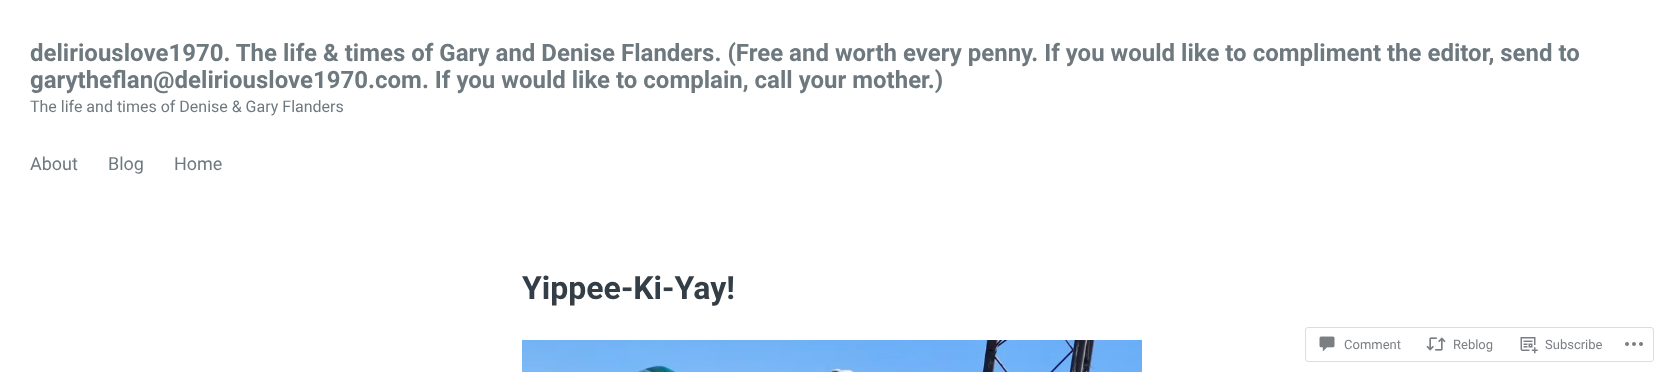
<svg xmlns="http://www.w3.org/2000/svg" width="1664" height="372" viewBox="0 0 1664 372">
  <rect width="100%" height="100%" fill="rgb(255,255,255)"/>
  <g font-family="Roboto" font-size="24" font-weight="bold" fill="rgb(110,121,127)">
    <text>
      <tspan x="30" y="61">deliriouslove1970. The life &amp; times of Gary and Denise Flanders. (Free and worth every penny. If you would like to compliment the editor, send to</tspan>
      <tspan x="30" y="88">garytheflan@deliriouslove1970.com. If you would like to complain, call your mother.)</tspan>
    </text>
  </g>
  <text x="30" y="112" font-family="Roboto" font-size="16" fill="rgb(110,121,127)">The life and times of Denise &amp; Gary Flanders</text>
  <g font-family="Roboto" font-size="18" fill="rgb(110,121,127)">
    <text x="30" y="170">About</text>
    <text x="108" y="170">Blog</text>
    <text x="174" y="170">Home</text>
  </g>
  <text x="522" y="299" font-family="Roboto" font-size="32" font-weight="bold" fill="rgb(52,62,71)">Yippee-Ki-Yay!</text>
  <image x="522" y="340" width="620" height="32" href="pic1.png"/>
  <rect x="1305.5" y="327.5" width="348" height="34" rx="2.5" fill="none" stroke="rgb(221,221,223)"/>
  <image x="1319" y="336" width="16" height="16" href="pic2.png"/>
  <text x="1344" y="349" font-family="Roboto" font-size="13" fill="rgb(123,127,133)">Comment</text>
  <image x="1426" y="337" width="20" height="14" href="pic3.png"/>
  <text x="1453" y="349" font-family="Roboto" font-size="13" fill="rgb(123,127,133)">Reblog</text>
  <image x="1520" y="337" width="18" height="17" href="pic4.png"/>
  <text x="1545" y="349" font-family="Roboto" font-size="13" fill="rgb(123,127,133)">Subscribe</text>
  <image x="1625" y="342" width="18" height="4" href="pic5.png"/>
</svg>
